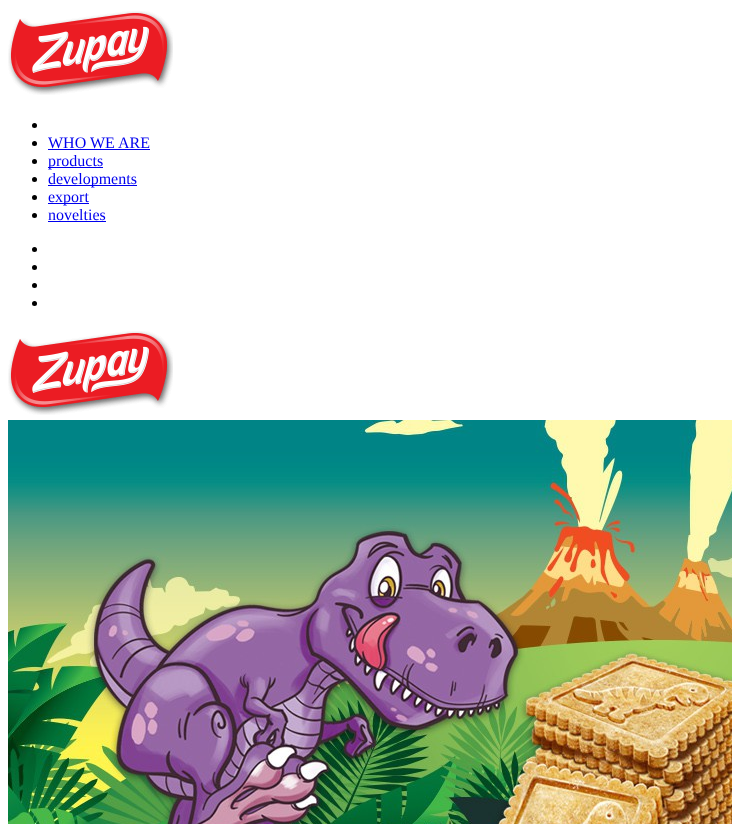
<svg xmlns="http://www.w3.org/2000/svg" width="732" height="824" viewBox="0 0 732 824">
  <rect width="100%" height="100%" fill="rgb(255,255,255)"/>
  <image x="8" y="11" width="165" height="84" href="pic1.png"/>
  <circle cx="34.5" cy="125.5" r="2.5" fill="rgb(0,0,0)"/>
  <circle cx="34.5" cy="143.5" r="2.5" fill="rgb(0,0,0)"/>
  <text x="48" y="148" font-family="Liberation Serif" font-size="16" fill="rgb(0,0,238)">WHO WE ARE</text>
  <rect x="48" y="149" width="102" height="1" fill="rgb(0,0,238)"/>
  <circle cx="34.5" cy="161.5" r="2.5" fill="rgb(0,0,0)"/>
  <rect x="48" y="167" width="55" height="1" fill="rgb(0,0,238)"/>
  <text x="48" y="166" font-family="Liberation Serif" font-size="16" fill="rgb(0,0,238)">products</text>
  <circle cx="34.5" cy="179.5" r="2.5" fill="rgb(0,0,0)"/>
  <rect x="48" y="185" width="89" height="1" fill="rgb(0,0,238)"/>
  <text x="48" y="184" font-family="Liberation Serif" font-size="16" fill="rgb(0,0,238)">developments</text>
  <circle cx="34.5" cy="197.5" r="2.5" fill="rgb(0,0,0)"/>
  <rect x="48" y="203" width="41" height="1" fill="rgb(0,0,238)"/>
  <text x="48" y="202" font-family="Liberation Serif" font-size="16" fill="rgb(0,0,238)">export</text>
  <circle cx="34.5" cy="215.5" r="2.5" fill="rgb(0,0,0)"/>
  <text x="48" y="220" font-family="Liberation Serif" font-size="16" fill="rgb(0,0,238)">novelties</text>
  <rect x="48" y="221" width="58" height="1" fill="rgb(0,0,238)"/>
  <circle cx="34.5" cy="249.5" r="2.5" fill="rgb(0,0,0)"/>
  <circle cx="34.5" cy="267.5" r="2.5" fill="rgb(0,0,0)"/>
  <circle cx="34.5" cy="285.5" r="2.5" fill="rgb(0,0,0)"/>
  <circle cx="34.5" cy="303.5" r="2.5" fill="rgb(0,0,0)"/>
  <image x="8" y="331" width="165" height="84" href="pic1.png"/>
  <image x="8" y="420" width="724" height="404" href="pic2.png"/>
</svg>
